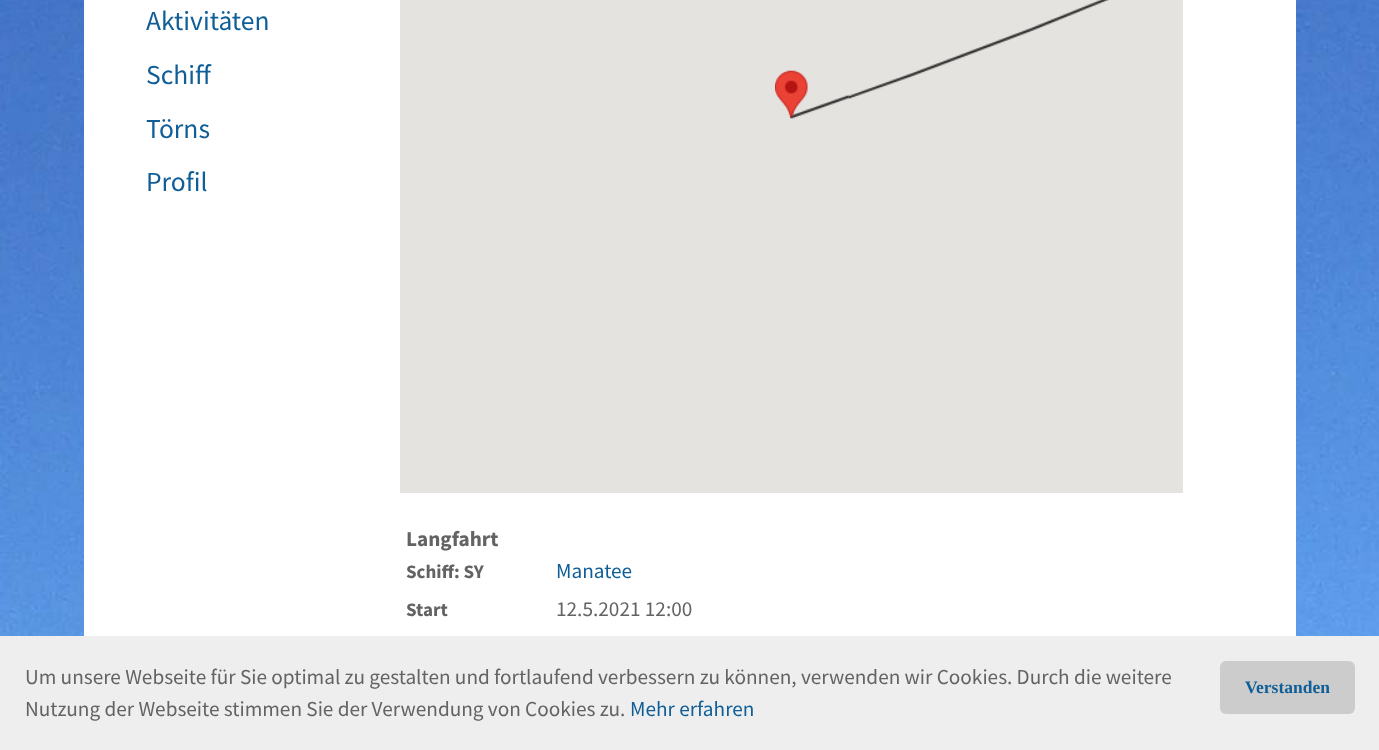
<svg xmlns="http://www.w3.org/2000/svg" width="1379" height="750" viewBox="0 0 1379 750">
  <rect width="100%" height="100%" fill="rgb(255,255,255)"/>
  <image x="0" y="0" width="1379" height="636" href="pic1.png"/>
  <rect x="84" y="0" width="1212" height="636" fill="rgb(255,255,255)"/>
  <g font-family="Source Sans Pro" font-size="27.5" fill="rgb(15,94,151)">
    <text>
      <tspan x="146" y="30">Aktivitäten</tspan>
      <tspan x="146" y="84">Schiff</tspan>
      <tspan x="146" y="138">Törns</tspan>
      <tspan x="146" y="191">Profil</tspan>
    </text>
  </g>
  <rect x="400" y="0" width="783" height="493" fill="rgb(229,227,223)"/>
  <image x="848" y="0" width="261" height="100" href="pic2.png"/>
  <image x="789" y="94" width="60" height="25" href="pic3.png"/>
  <image x="775" y="70" width="33" height="47" href="pic4.png"/>
  <text x="406" y="546" font-family="Source Sans Pro" font-size="21.25" font-weight="bold" fill="rgb(99,99,99)">Langfahrt</text>
  <text x="406" y="578" font-family="Source Sans Pro" font-size="19" font-weight="bold" fill="rgb(99,99,99)">Schiff: SY</text>
  <text x="556" y="578" font-family="Source Sans Pro" font-size="21.25" fill="rgb(15,94,151)">Manatee</text>
  <text x="406" y="616" font-family="Source Sans Pro" font-size="19" font-weight="bold" fill="rgb(99,99,99)">Start</text>
  <text x="556" y="616" font-family="Source Sans Pro" font-size="21.25" fill="rgb(99,99,99)">12.5.2021 12:00</text>
  <rect x="0" y="636" width="1379" height="114" fill="rgb(238,238,238)"/>
  <g font-family="Source Sans Pro" font-size="21.25" fill="rgb(99,99,99)">
    <text>
      <tspan x="25" y="684">Um unsere Webseite für Sie optimal zu gestalten und fortlaufend verbessern zu können, verwenden wir Cookies. Durch die weitere</tspan>
      <tspan x="25" y="716">Nutzung der Webseite stimmen Sie der Verwendung von Cookies zu.</tspan>
    </text>
  </g>
  <text x="630" y="716" font-family="Source Sans Pro" font-size="21.25" fill="rgb(15,94,151)">Mehr erfahren</text>
  <rect x="1220" y="661" width="135" height="53" rx="6" fill="rgb(204,204,204)"/>
  <text x="1245" y="693" font-family="Liberation Serif" font-size="17.5" font-weight="bold" fill="rgb(15,94,151)">Verstanden</text>
</svg>
